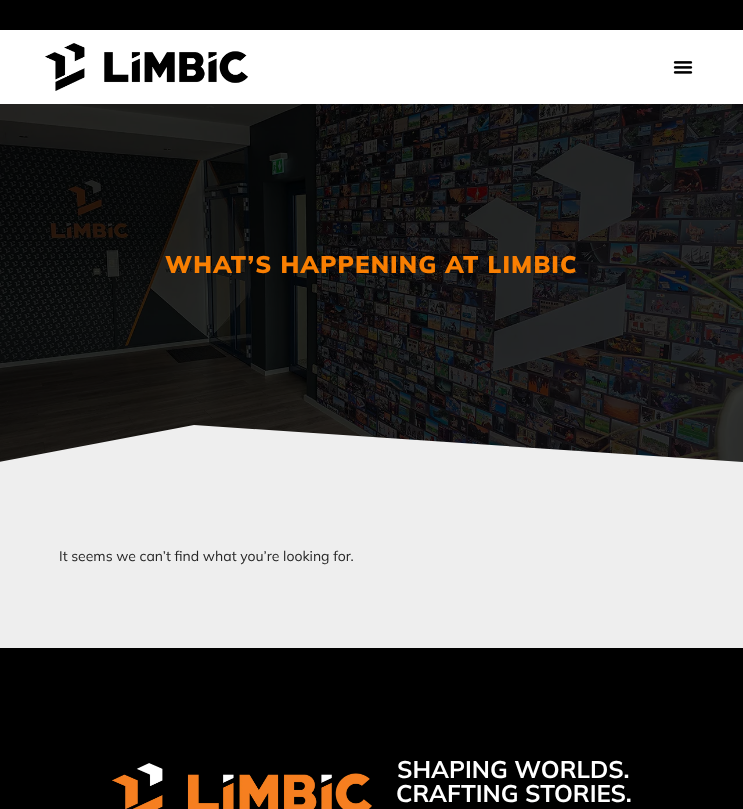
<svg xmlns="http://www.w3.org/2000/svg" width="743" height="809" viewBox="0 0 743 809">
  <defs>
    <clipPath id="clip1"><rect x="0" y="425" width="743" height="39"/></clipPath>
  </defs>
  <rect width="100%" height="100%" fill="rgb(238,238,238)"/>
  <rect x="0" y="0" width="743" height="30" fill="rgb(0,0,0)"/>
  <rect x="0" y="30" width="743" height="74" fill="rgb(255,255,255)"/>
  <image x="45" y="43" width="203" height="48" href="pic1.png"/>
  <image x="673" y="61" width="20" height="13" href="pic2.png"/>
  <image x="0" y="104" width="743" height="358" href="pic3.png"/>
  <text x="165" y="273" font-family="Mulish" font-size="24" font-weight="900" letter-spacing="1.1" fill="rgb(249,127,2)">WHAT’S HAPPENING AT LIMBIC</text>
  <g clip-path="url(#clip1)">
    <path d="M194 425L-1 462V465H743V462Z" fill="rgb(238,238,238)"/>
  </g>
  <text x="59" y="561" font-family="Mulish" font-size="14" fill="rgb(38,38,38)">It seems we can’t find what you’re looking for.</text>
  <rect x="0" y="648" width="743" height="161" fill="rgb(0,0,0)"/>
  <image x="112" y="763" width="260" height="46" href="pic4.png"/>
  <g font-family="Mulish" font-size="24" font-weight="bold" fill="rgb(255,255,255)">
    <text x="397" y="778">SHAPING WORLDS.</text>
    <text x="396" y="802">CRAFTING STORIES.</text>
  </g>
</svg>
